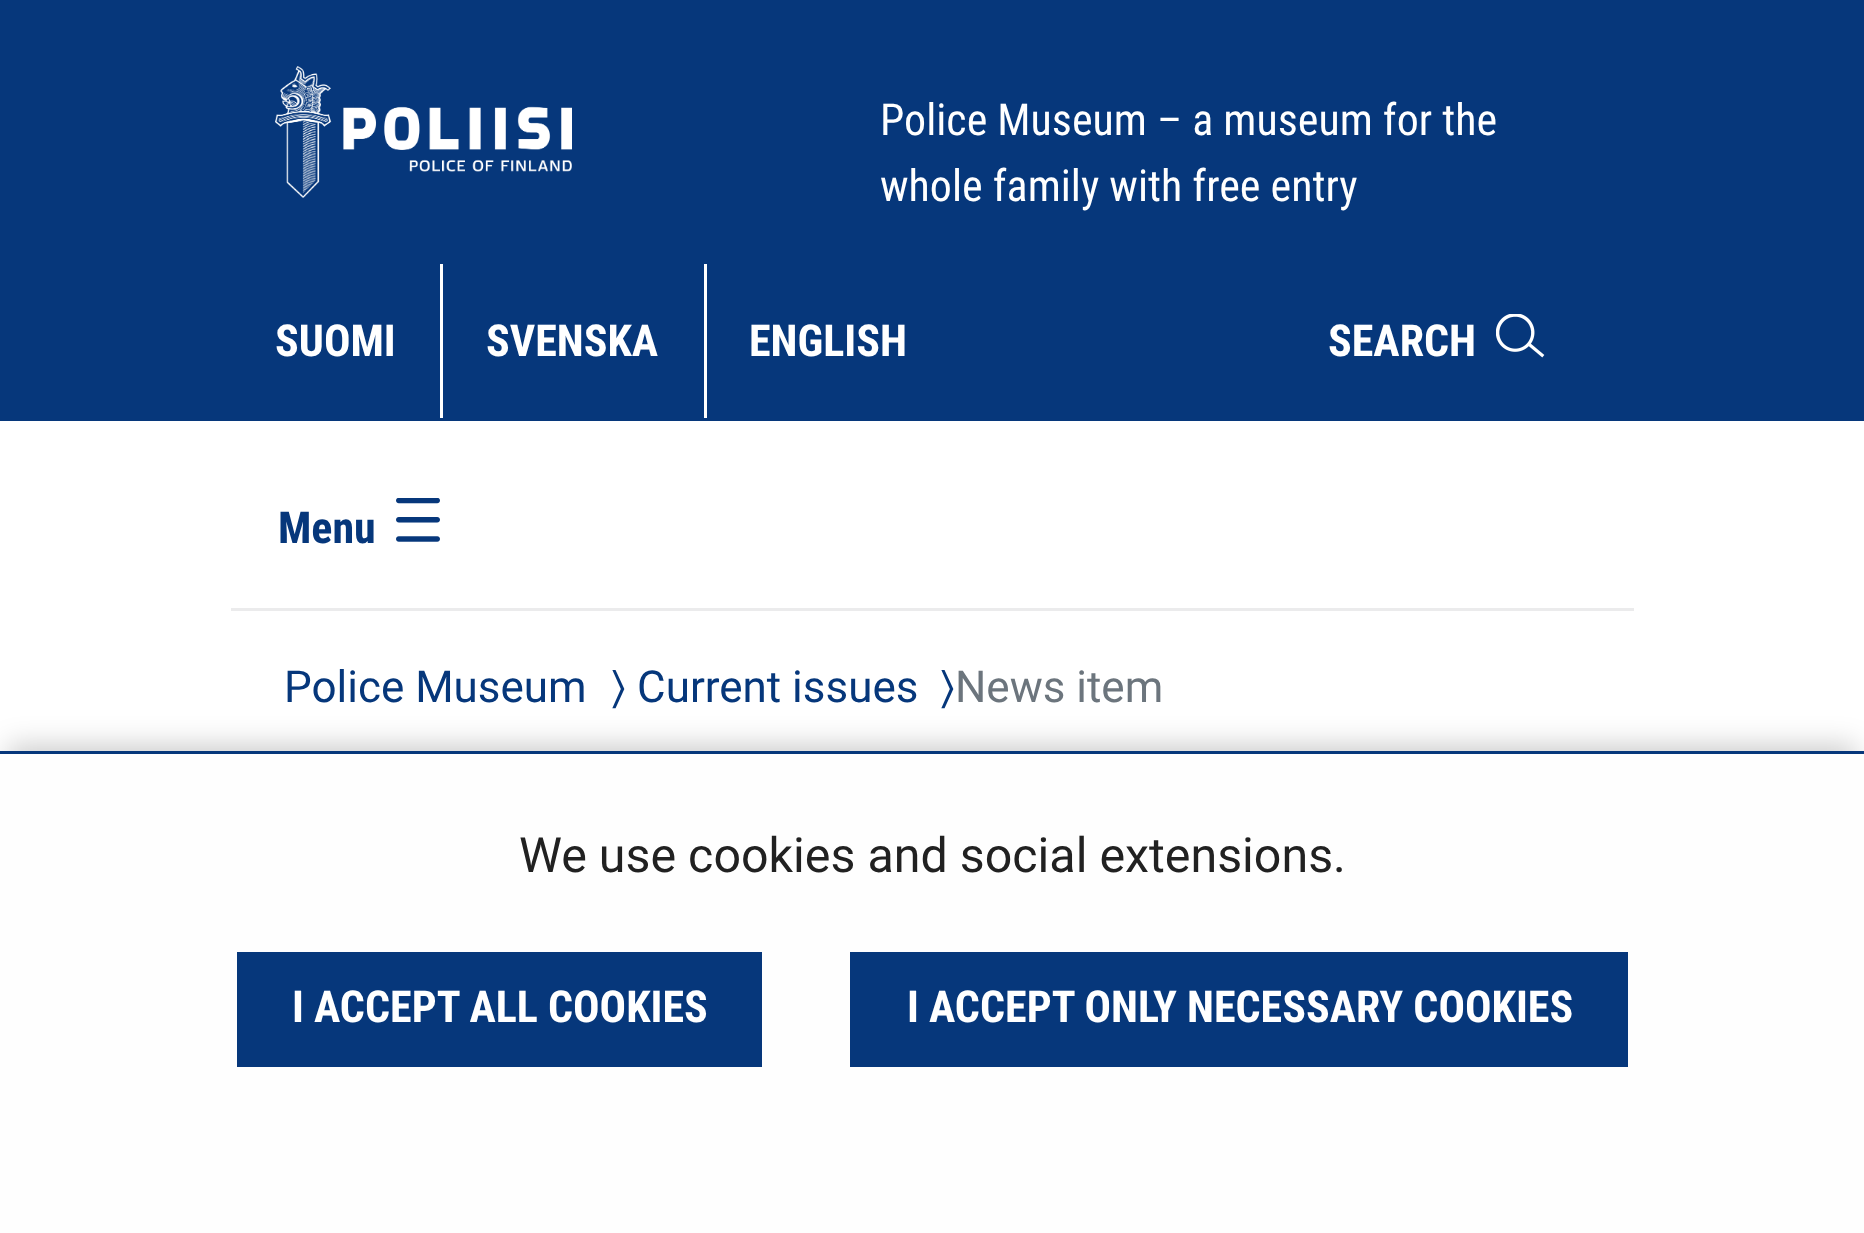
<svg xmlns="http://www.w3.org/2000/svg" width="1864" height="1233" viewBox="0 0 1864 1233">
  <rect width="100%" height="100%" fill="rgb(255,255,255)"/>
  <rect x="0" y="0" width="1864" height="421" fill="rgb(6,55,123)"/>
  <image x="275" y="66" width="297" height="132" href="pic1.png"/>
  <g font-family="Roboto Condensed" font-size="44" fill="rgb(255,255,255)">
    <text>
      <tspan x="880" y="135">Police Museum – a museum for the</tspan>
      <tspan x="880" y="201">whole family with free entry</tspan>
    </text>
  </g>
  <rect x="440" y="264" width="3" height="154" fill="rgb(255,255,255)"/>
  <text x="275" y="356" font-family="Roboto Condensed" font-size="44" font-weight="bold" fill="rgb(255,255,255)">SUOMI</text>
  <rect x="704" y="264" width="3" height="154" fill="rgb(255,255,255)"/>
  <g font-family="Roboto Condensed" font-size="44" font-weight="bold" fill="rgb(255,255,255)">
    <text x="486" y="356">SVENSKA</text>
    <text x="749" y="356">ENGLISH</text>
    <text x="1328" y="356">SEARCH</text>
  </g>
  <image x="1496" y="314" width="49" height="44" href="pic2.png"/>
  <text x="278" y="543" font-family="Roboto Condensed" font-size="44" font-weight="bold" fill="rgb(6,55,123)">Menu</text>
  <image x="396" y="498" width="44" height="44" href="pic3.png"/>
  <rect x="231" y="608" width="1403" height="3" fill="rgb(235,235,236)"/>
  <text x="284" y="702" font-family="Roboto" font-size="44" fill="rgb(6,55,123)">Police Museum</text>
  <text x="611" y="702" font-family="FreeSans" font-size="44" fill="rgb(6,55,123)">〉</text>
  <text x="637" y="702" font-family="Roboto" font-size="44" fill="rgb(6,55,123)">Current issues</text>
  <text x="940" y="702" font-family="FreeSans" font-size="44" fill="rgb(6,55,123)">〉</text>
  <text x="955" y="702" font-family="Roboto" font-size="44" fill="rgb(108,117,125)">News item</text>
  <rect x="8" y="745" width="1848" height="468" fill="rgba(0,0,0,0.2)" filter="blur(14px)"/>
  <rect x="0" y="754" width="1864" height="479" fill="rgb(254,254,254)"/>
  <rect x="0" y="751" width="1864" height="3" fill="rgb(6,55,123)"/>
  <text x="519" y="872" font-family="Roboto" font-size="48.4" fill="rgb(33,33,33)">We use cookies and social extensions.</text>
  <rect x="237" y="952" width="525" height="115" fill="rgb(6,55,123)"/>
  <text x="292" y="1022" font-family="Roboto Condensed" font-size="44" font-weight="bold" fill="rgb(255,255,255)">I ACCEPT ALL COOKIES</text>
  <rect x="850" y="952" width="778" height="115" fill="rgb(6,55,123)"/>
  <text x="907" y="1022" font-family="Roboto Condensed" font-size="44" font-weight="bold" fill="rgb(255,255,255)">I ACCEPT ONLY NECESSARY COOKIES</text>
</svg>
